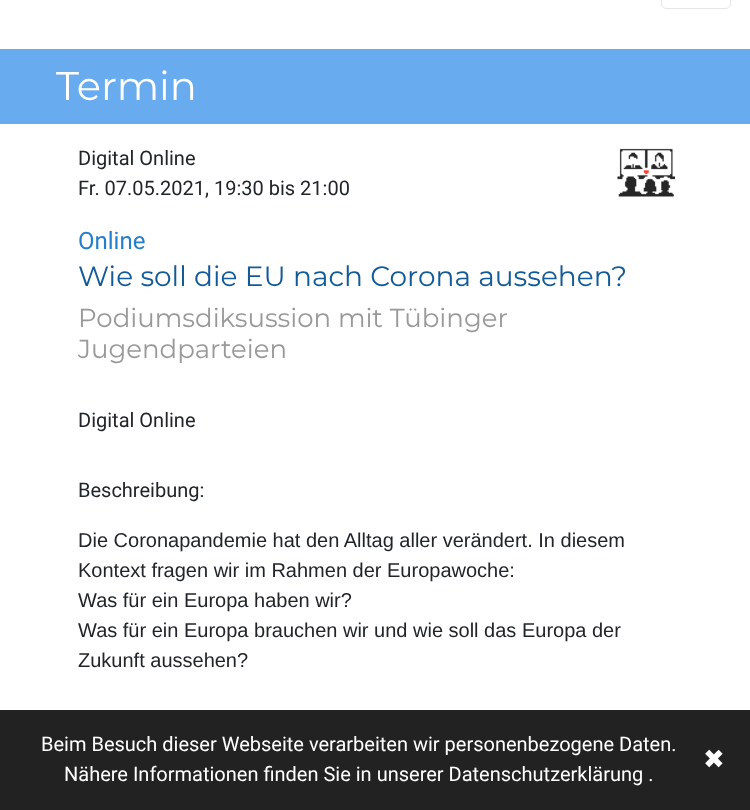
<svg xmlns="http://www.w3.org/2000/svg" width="750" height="810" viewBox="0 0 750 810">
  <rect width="100%" height="100%" fill="rgb(255,255,255)"/>
  <rect x="661.5" y="-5.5" width="69" height="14" rx="4.5" fill="none" stroke="rgb(230,230,230)"/>
  <rect x="0" y="49" width="750" height="75" fill="rgb(104,171,239)"/>
  <text x="56" y="100" font-family="Montserrat" font-size="40" fill="rgb(255,255,255)">Termin</text>
  <text x="78" y="165" font-family="Roboto" font-size="20" fill="rgb(33,37,41)">Digital Online</text>
  <image x="617" y="148" width="58" height="49" href="pic1.png"/>
  <text x="78" y="195" font-family="Roboto" font-size="20" fill="rgb(33,37,41)">Fr. 07.05.2021, 19:30 bis 21:00</text>
  <text x="78" y="249" font-family="Roboto" font-size="24" fill="rgb(38,127,202)">Online</text>
  <text x="78" y="286" font-family="Montserrat" font-size="28" fill="rgb(18,91,152)">Wie soll die EU nach Corona aussehen?</text>
  <g font-family="Montserrat" font-size="26" fill="rgb(153,153,153)">
    <text>
      <tspan x="78" y="327">Podiumsdiksussion mit Tübinger</tspan>
      <tspan x="78" y="358">Jugendparteien</tspan>
    </text>
  </g>
  <g font-family="Roboto" font-size="20" fill="rgb(33,37,41)">
    <text x="78" y="427">Digital Online</text>
    <text x="78" y="497">Beschreibung:</text>
  </g>
  <g font-family="Liberation Sans" font-size="20" fill="rgb(33,37,41)">
    <text>
      <tspan x="78" y="547">Die Coronapandemie hat den Alltag aller verändert. In diesem</tspan>
      <tspan x="78" y="577">Kontext fragen wir im Rahmen der Europawoche:</tspan>
      <tspan x="78" y="607">Was für ein Europa haben wir?</tspan>
      <tspan x="78" y="637">Was für ein Europa brauchen wir und wie soll das Europa der</tspan>
      <tspan x="78" y="667">Zukunft aussehen?</tspan>
    </text>
  </g>
  <rect x="0" y="710" width="750" height="100" fill="rgba(10,10,10,0.9)"/>
  <g font-family="Roboto" font-size="20" fill="rgb(255,255,255)">
    <text x="41" y="751">Beim Besuch dieser Webseite verarbeiten wir personenbezogene Daten.</text>
    <text x="64" y="781">Nähere Informationen finden Sie in unserer Datenschutzerklärung .</text>
  </g>
  <text x="703" y="768" font-family="DejaVu Sans" font-size="26" fill="rgb(255,255,255)">✖</text>
</svg>
